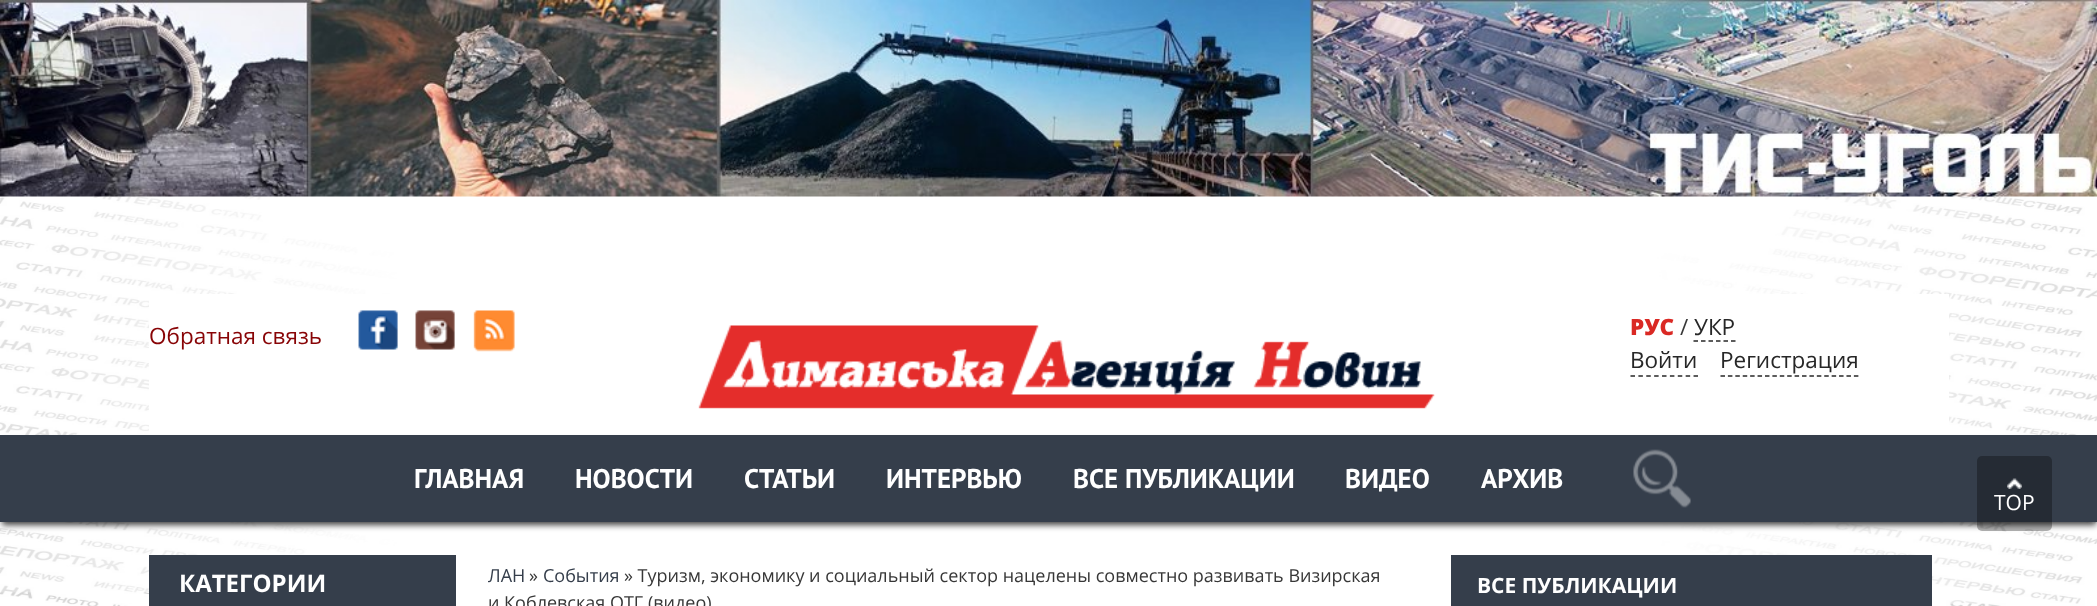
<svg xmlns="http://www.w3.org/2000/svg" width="2097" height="606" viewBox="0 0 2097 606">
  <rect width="100%" height="100%" fill="rgb(255,255,255)"/>
  <image x="0" y="196" width="2097" height="410" href="pic1.png"/>
  <image x="0" y="0" width="2097" height="197" href="pic2.png"/>
  <rect x="149" y="294" width="1800" height="141" fill="rgb(255,255,255)"/>
  <text x="149" y="344" font-family="Open Sans" font-size="22.5" fill="rgb(136,4,6)">Обратная связь</text>
  <image x="358" y="310" width="40" height="40" href="pic3.png"/>
  <image x="415" y="310" width="40" height="40" href="pic4.png"/>
  <image x="473" y="310" width="42" height="42" href="pic5.png"/>
  <image x="698" y="325" width="737" height="84" href="pic6.png"/>
  <text x="1630" y="335" font-family="Open Sans" font-size="22.5" font-weight="800" fill="rgb(218,41,36)">РУС</text>
  <text x="1680" y="335" font-family="Open Sans" font-size="22.5" fill="rgb(55,55,55)">/</text>
  <text x="1694" y="335" font-family="Open Sans" font-size="22.5" fill="rgb(39,39,39)">УКР</text>
  <path d="M1693.5 341H1735.5" fill="none" stroke="rgb(39,39,39)" stroke-width="1.5" stroke-dasharray="4.5 3"/>
  <text x="1630" y="368" font-family="Open Sans" font-size="22.5" fill="rgb(39,39,39)">Войти</text>
  <path d="M1630.5 376H1698" fill="none" stroke="rgb(39,39,39)" stroke-width="1.5" stroke-dasharray="4.5 3.38"/>
  <text x="1720" y="368" font-family="Open Sans" font-size="22.5" fill="rgb(39,39,39)">Регистрация</text>
  <path d="M1720.5 376H1858.5" fill="none" stroke="rgb(39,39,39)" stroke-width="1.5" stroke-dasharray="4.5 2.91"/>
  <rect x="2" y="441" width="2094" height="84" fill="rgba(0,0,0,0.75)" filter="blur(3px)"/>
  <rect x="0" y="435" width="2097" height="87" fill="rgb(53,62,75)"/>
  <g font-family="PT Sans" font-size="27" font-weight="bold" fill="rgb(255,255,255)">
    <text x="414" y="488">ГЛАВНАЯ</text>
    <text x="575" y="488">НОВОСТИ</text>
    <text x="744" y="488">СТАТЬИ</text>
    <text x="886" y="488">ИНТЕРВЬЮ</text>
    <text x="1073" y="488">ВСЕ ПУБЛИКАЦИИ</text>
    <text x="1345" y="488">ВИДЕО</text>
    <text x="1481" y="488">АРХИВ</text>
  </g>
  <image x="1633" y="449" width="58" height="59" href="pic7.png"/>
  <rect x="149" y="555" width="307" height="51" fill="rgb(53,62,75)"/>
  <text x="179" y="592" font-family="Open Sans" font-size="24" font-weight="bold" fill="rgb(255,255,255)">КАТЕГОРИИ</text>
  <text x="488" y="582" font-family="Open Sans" font-size="18" fill="rgb(53,62,75)">ЛАН</text>
  <text x="529" y="582" font-family="Open Sans" font-size="18" fill="rgb(55,55,55)">»</text>
  <text x="543" y="582" font-family="Open Sans" font-size="18" fill="rgb(53,62,75)">События</text>
  <g font-family="Open Sans" font-size="18" fill="rgb(55,55,55)">
    <text x="624" y="582">» Туризм, экономику и социальный сектор нацелены совместно развивать Визирская</text>
    <text x="488" y="609">и Коблевская ОТГ (видео)</text>
  </g>
  <rect x="1451" y="555" width="481" height="51" fill="rgb(53,62,75)"/>
  <text x="1477" y="593" font-family="Open Sans" font-size="21" font-weight="bold" fill="rgb(255,255,255)">ВСЕ ПУБЛИКАЦИИ</text>
  <rect x="1977" y="456" width="75" height="75" rx="5" fill="rgba(0,0,0,0.3)"/>
  <image x="2007" y="478" width="15" height="11" href="pic8.png"/>
  <text x="1994" y="510" font-family="Open Sans" font-size="21" fill="rgb(255,255,255)">TOP</text>
</svg>
